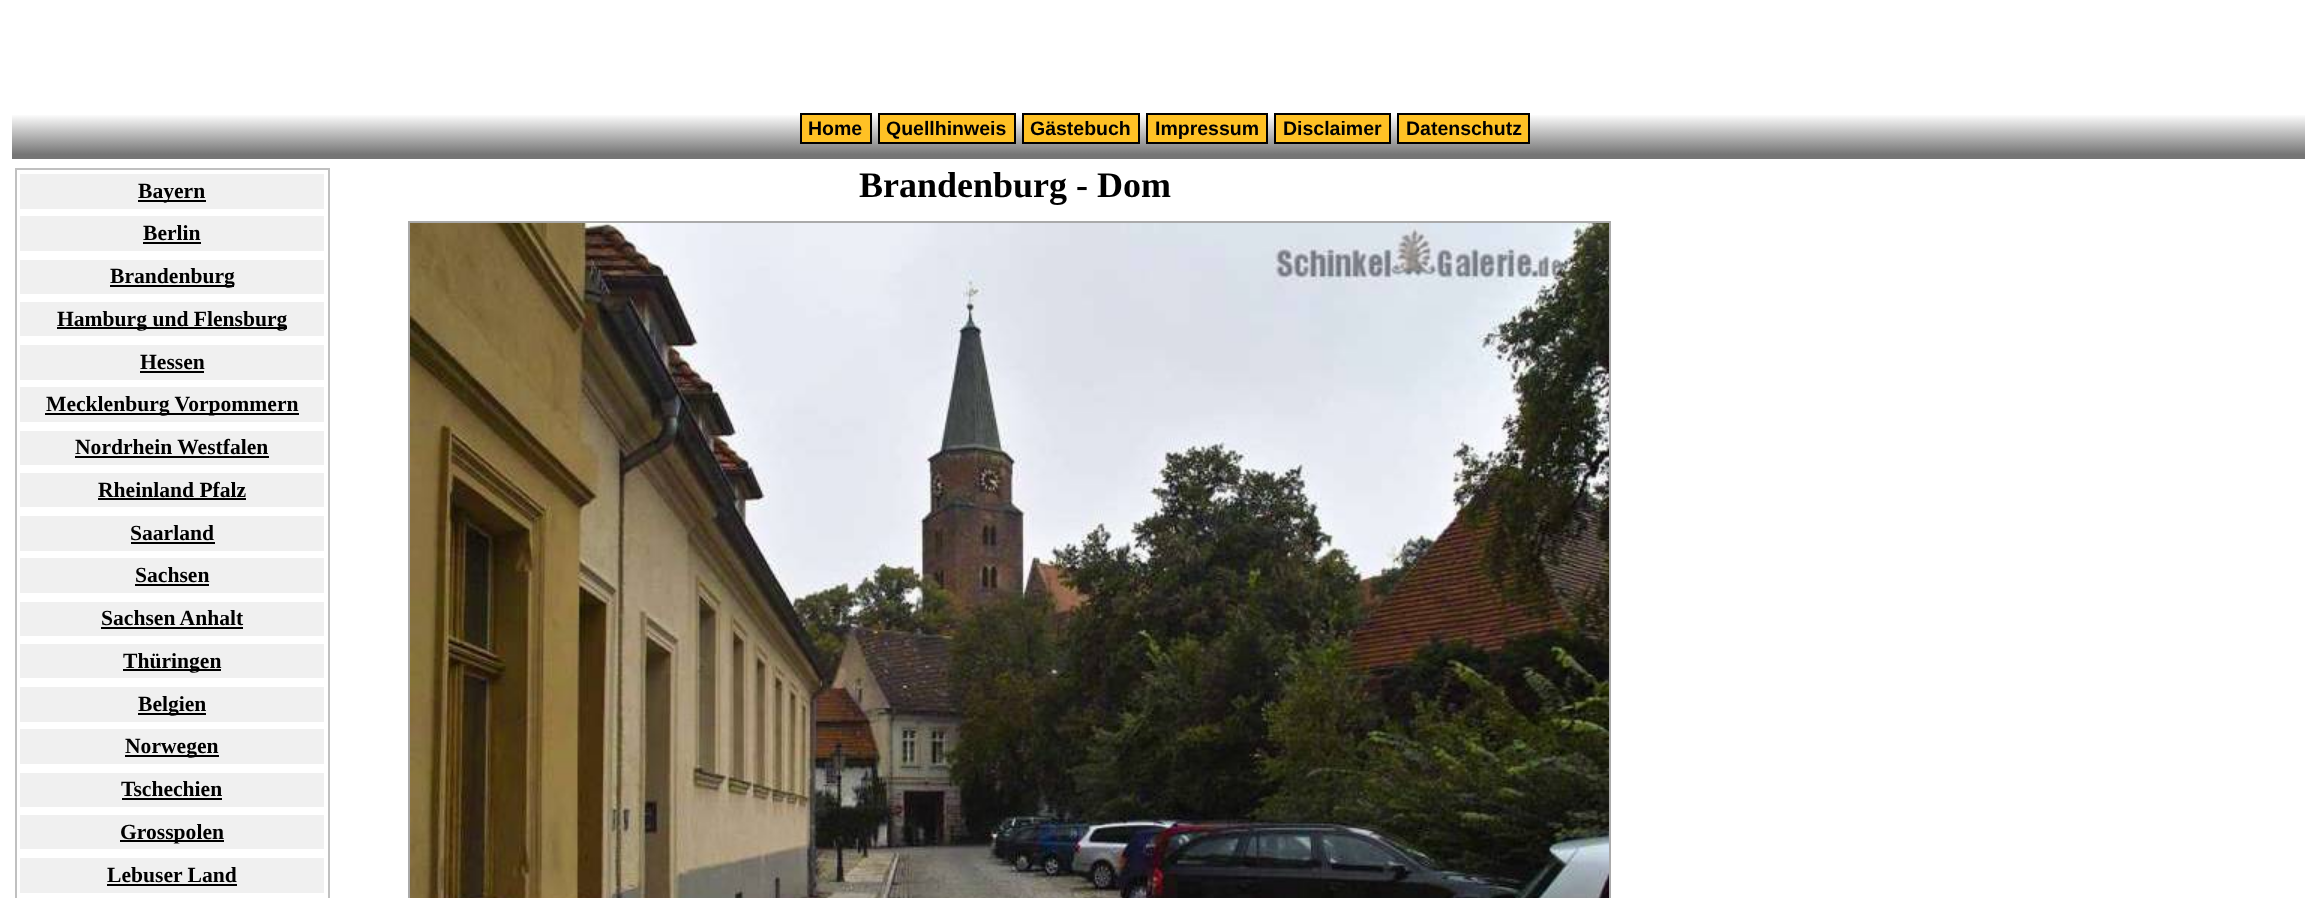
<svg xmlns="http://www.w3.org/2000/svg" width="2305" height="898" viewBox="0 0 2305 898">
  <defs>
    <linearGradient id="g1" gradientUnits="userSpaceOnUse" x1="1165" y1="114" x2="1165" y2="159"><stop offset="0" stop-color="rgb(255,255,255)"/><stop offset="0.9" stop-color="rgb(117,117,117)"/></linearGradient>
  </defs>
  <rect width="100%" height="100%" fill="rgb(255,255,255)"/>
  <rect x="12" y="115" width="2293" height="44" fill="url(#g1)"/>
  <rect x="801" y="114" width="70" height="29" fill="rgb(255,193,37)" stroke="rgb(0,0,0)" stroke-width="2"/>
  <text x="808" y="135" font-family="Liberation Sans" font-size="19.5" font-weight="bold" fill="rgb(0,0,0)">Home</text>
  <rect x="879" y="114" width="136" height="29" fill="rgb(255,193,37)" stroke="rgb(0,0,0)" stroke-width="2"/>
  <text x="886" y="135" font-family="Liberation Sans" font-size="19.5" font-weight="bold" fill="rgb(0,0,0)">Quellhinweis</text>
  <rect x="1023" y="114" width="116" height="29" fill="rgb(255,193,37)" stroke="rgb(0,0,0)" stroke-width="2"/>
  <text x="1030" y="135" font-family="Liberation Sans" font-size="19.5" font-weight="bold" fill="rgb(0,0,0)">Gästebuch</text>
  <rect x="1147" y="114" width="120" height="29" fill="rgb(255,193,37)" stroke="rgb(0,0,0)" stroke-width="2"/>
  <text x="1155" y="135" font-family="Liberation Sans" font-size="19.5" font-weight="bold" fill="rgb(0,0,0)">Impressum</text>
  <rect x="1275" y="114" width="115" height="29" fill="rgb(255,193,37)" stroke="rgb(0,0,0)" stroke-width="2"/>
  <text x="1283" y="135" font-family="Liberation Sans" font-size="19.5" font-weight="bold" fill="rgb(0,0,0)">Disclaimer</text>
  <rect x="1398" y="114" width="131" height="29" fill="rgb(255,193,37)" stroke="rgb(0,0,0)" stroke-width="2"/>
  <text x="1406" y="135" font-family="Liberation Sans" font-size="19.5" font-weight="bold" fill="rgb(0,0,0)">Datenschutz</text>
  <text x="859" y="197" font-family="Liberation Serif" font-size="36" font-weight="bold" fill="rgb(0,0,0)">Brandenburg - Dom</text>
  <image x="410" y="223" width="1199" height="675" href="pic1.png"/>
  <rect x="409" y="222" width="1201" height="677" fill="none" stroke="rgb(170,170,170)" stroke-width="2"/>
  <rect x="16" y="169" width="313" height="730" fill="none" stroke="rgb(192,192,192)" stroke-width="2"/>
  <rect x="20" y="174" width="304" height="35" fill="rgb(240,240,240)"/>
  <rect x="138" y="200" width="68" height="2" fill="rgb(0,0,0)"/>
  <text x="138" y="198" font-family="Liberation Serif" font-size="21.6" font-weight="bold" fill="rgb(0,0,0)">Bayern</text>
  <rect x="20" y="216" width="304" height="35" fill="rgb(240,240,240)"/>
  <text x="143" y="240" font-family="Liberation Serif" font-size="21.6" font-weight="bold" fill="rgb(0,0,0)">Berlin</text>
  <rect x="143" y="242" width="58" height="2" fill="rgb(0,0,0)"/>
  <rect x="20" y="260" width="304" height="34" fill="rgb(240,240,240)"/>
  <rect x="110" y="285" width="124" height="2" fill="rgb(0,0,0)"/>
  <text x="110" y="283" font-family="Liberation Serif" font-size="21.6" font-weight="bold" fill="rgb(0,0,0)">Brandenburg</text>
  <rect x="20" y="302" width="304" height="34" fill="rgb(240,240,240)"/>
  <rect x="57" y="327" width="230" height="2" fill="rgb(0,0,0)"/>
  <text x="57" y="326" font-family="Liberation Serif" font-size="21.6" font-weight="bold" fill="rgb(0,0,0)">Hamburg und Flensburg</text>
  <rect x="20" y="345" width="304" height="35" fill="rgb(240,240,240)"/>
  <text x="140" y="369" font-family="Liberation Serif" font-size="21.6" font-weight="bold" fill="rgb(0,0,0)">Hessen</text>
  <rect x="140" y="371" width="64" height="2" fill="rgb(0,0,0)"/>
  <rect x="20" y="387" width="304" height="35" fill="rgb(240,240,240)"/>
  <rect x="45" y="413" width="254" height="2" fill="rgb(0,0,0)"/>
  <text x="46" y="411" font-family="Liberation Serif" font-size="21.6" font-weight="bold" fill="rgb(0,0,0)">Mecklenburg Vorpommern</text>
  <rect x="20" y="431" width="304" height="34" fill="rgb(240,240,240)"/>
  <text x="75" y="454" font-family="Liberation Serif" font-size="21.6" font-weight="bold" fill="rgb(0,0,0)">Nordrhein Westfalen</text>
  <rect x="75" y="456" width="194" height="2" fill="rgb(0,0,0)"/>
  <rect x="20" y="473" width="304" height="34" fill="rgb(240,240,240)"/>
  <text x="98" y="497" font-family="Liberation Serif" font-size="21.6" font-weight="bold" fill="rgb(0,0,0)">Rheinland Pfalz</text>
  <rect x="98" y="498" width="148" height="2" fill="rgb(0,0,0)"/>
  <rect x="20" y="516" width="304" height="35" fill="rgb(240,240,240)"/>
  <text x="130" y="540" font-family="Liberation Serif" font-size="21.6" font-weight="bold" fill="rgb(0,0,0)">Saarland</text>
  <rect x="131" y="542" width="84" height="2" fill="rgb(0,0,0)"/>
  <rect x="20" y="558" width="304" height="35" fill="rgb(240,240,240)"/>
  <text x="135" y="582" font-family="Liberation Serif" font-size="21.6" font-weight="bold" fill="rgb(0,0,0)">Sachsen</text>
  <rect x="135" y="584" width="74" height="2" fill="rgb(0,0,0)"/>
  <rect x="20" y="602" width="304" height="34" fill="rgb(240,240,240)"/>
  <text x="101" y="625" font-family="Liberation Serif" font-size="21.6" font-weight="bold" fill="rgb(0,0,0)">Sachsen Anhalt</text>
  <rect x="101" y="627" width="142" height="2" fill="rgb(0,0,0)"/>
  <rect x="20" y="644" width="304" height="34" fill="rgb(240,240,240)"/>
  <rect x="123" y="669" width="98" height="2" fill="rgb(0,0,0)"/>
  <text x="123" y="668" font-family="Liberation Serif" font-size="21.6" font-weight="bold" fill="rgb(0,0,0)">Thüringen</text>
  <rect x="20" y="687" width="304" height="35" fill="rgb(240,240,240)"/>
  <rect x="138" y="713" width="68" height="2" fill="rgb(0,0,0)"/>
  <text x="138" y="711" font-family="Liberation Serif" font-size="21.6" font-weight="bold" fill="rgb(0,0,0)">Belgien</text>
  <rect x="20" y="729" width="304" height="35" fill="rgb(240,240,240)"/>
  <rect x="125" y="755" width="94" height="2" fill="rgb(0,0,0)"/>
  <text x="125" y="753" font-family="Liberation Serif" font-size="21.6" font-weight="bold" fill="rgb(0,0,0)">Norwegen</text>
  <rect x="20" y="773" width="304" height="34" fill="rgb(240,240,240)"/>
  <text x="121" y="796" font-family="Liberation Serif" font-size="21.6" font-weight="bold" fill="rgb(0,0,0)">Tschechien</text>
  <rect x="122" y="798" width="100" height="2" fill="rgb(0,0,0)"/>
  <rect x="20" y="815" width="304" height="34" fill="rgb(240,240,240)"/>
  <rect x="120" y="840" width="104" height="2" fill="rgb(0,0,0)"/>
  <text x="120" y="839" font-family="Liberation Serif" font-size="21.6" font-weight="bold" fill="rgb(0,0,0)">Grosspolen</text>
  <rect x="20" y="858" width="304" height="35" fill="rgb(240,240,240)"/>
  <text x="107" y="882" font-family="Liberation Serif" font-size="21.6" font-weight="bold" fill="rgb(0,0,0)">Lebuser Land</text>
  <rect x="107" y="884" width="130" height="2" fill="rgb(0,0,0)"/>
</svg>
